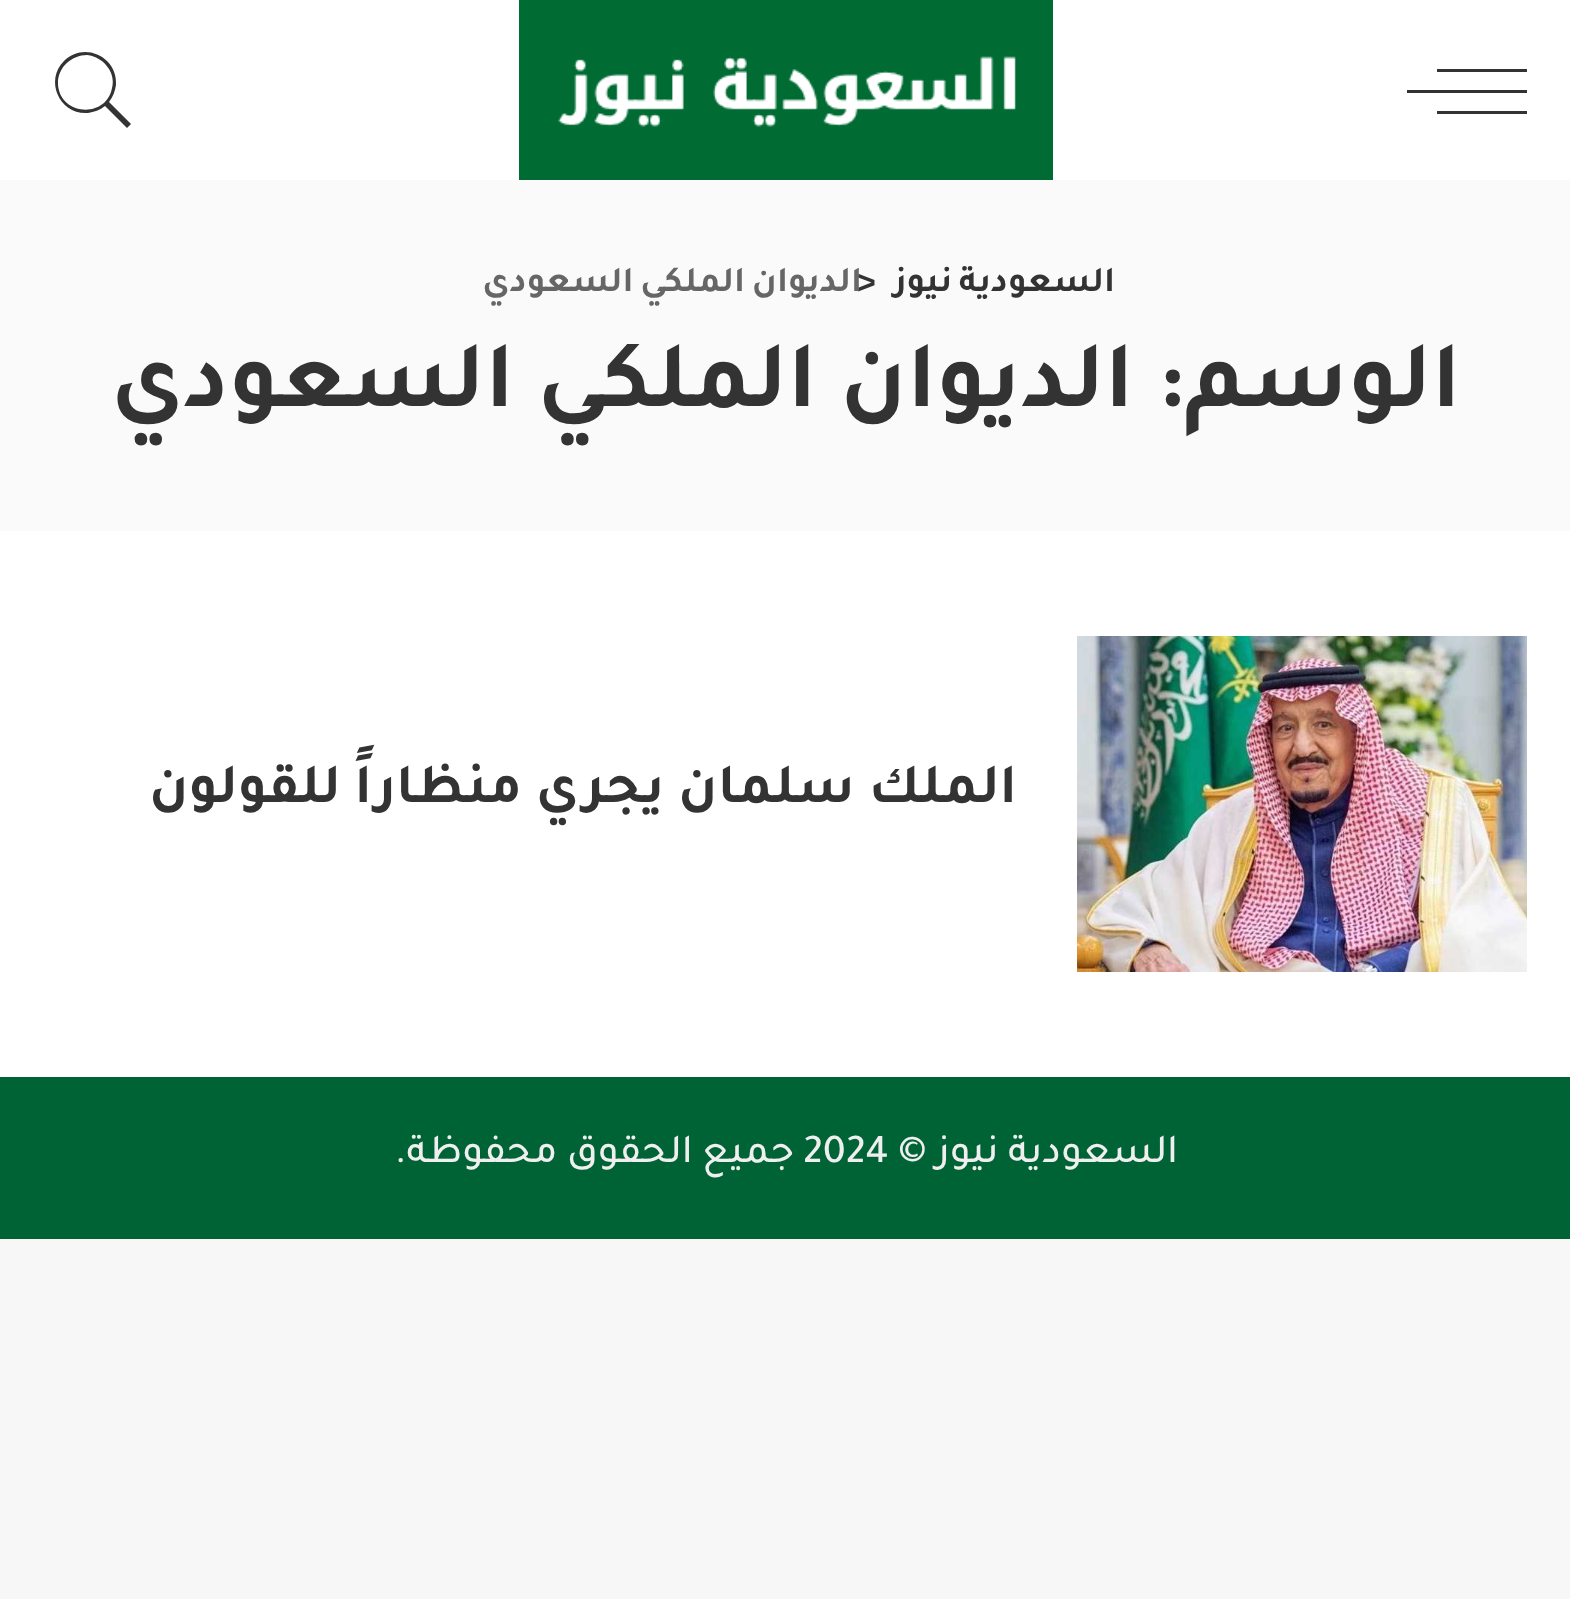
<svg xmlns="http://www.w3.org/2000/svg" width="1570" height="1599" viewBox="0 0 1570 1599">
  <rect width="100%" height="100%" fill="rgb(247,247,247)"/>
  <rect x="0" y="0" width="1570" height="1077" fill="rgb(255,255,255)"/>
  <rect x="1407" y="90" width="120" height="3" fill="rgb(51,51,51)"/>
  <rect x="1437" y="69" width="90" height="3" fill="rgb(51,51,51)"/>
  <rect x="1437" y="111" width="90" height="3" fill="rgb(51,51,51)"/>
  <image x="519" y="0" width="534" height="180" href="pic1.png"/>
  <path d="M131 124L109 102C113 97 115 91 116 85C118 57 84 41 64 61C44 81 60 115 88 113C94 112 100 110 105 106L127 128ZM58 83C58 67 72 55 87 55C96 56 104 61 109 69C112 74 114 81 112 88C106 120 58 115 58 83Z" fill="rgb(51,51,51)"/>
  <rect x="0" y="180" width="1570" height="351" fill="rgb(250,250,250)"/>
  <text x="1115" y="291" word-spacing="-2" font-family="Tajawal" font-size="36" font-weight="bold" letter-spacing="0.8" direction="rtl" fill="rgb(51,51,51)">السعودية نيوز</text>
  <text x="857" y="291" font-family="Tajawal" font-size="36" font-weight="bold" letter-spacing="0.8" fill="rgb(51,51,51)">&gt;</text>
  <text x="862" y="291" word-spacing="-2" font-family="Tajawal" font-size="36" font-weight="bold" letter-spacing="0.8" direction="rtl" fill="rgb(102,102,102)">الديوان الملكي السعودي</text>
  <g font-family="Tajawal" font-size="96" font-weight="bold" direction="rtl" fill="rgb(51,51,51)">
    <text x="1461" y="406">الوسم:</text>
    <text x="1134" y="406">الديوان الملكي السعودي</text>
  </g>
  <image x="1077" y="636" width="450" height="336" href="pic2.png"/>
  <text x="1017" y="802" font-family="Tajawal" font-size="56.75" font-weight="bold" direction="rtl" fill="rgb(51,51,51)">الملك سلمان يجري منظاراً للقولون</text>
  <rect x="0" y="1077" width="1570" height="162" fill="rgb(0,99,54)"/>
  <text x="1178" y="1162" font-family="Tajawal" font-size="41" font-weight="500" direction="rtl" fill="rgb(239,239,239)">السعودية نيوز ©</text>
  <text x="803" y="1162" font-family="Tajawal" font-size="41" font-weight="500" fill="rgb(239,239,239)">2024</text>
  <text x="794" y="1162" font-family="Tajawal" font-size="41" font-weight="500" direction="rtl" fill="rgb(239,239,239)">جميع الحقوق محفوظة.</text>
</svg>
